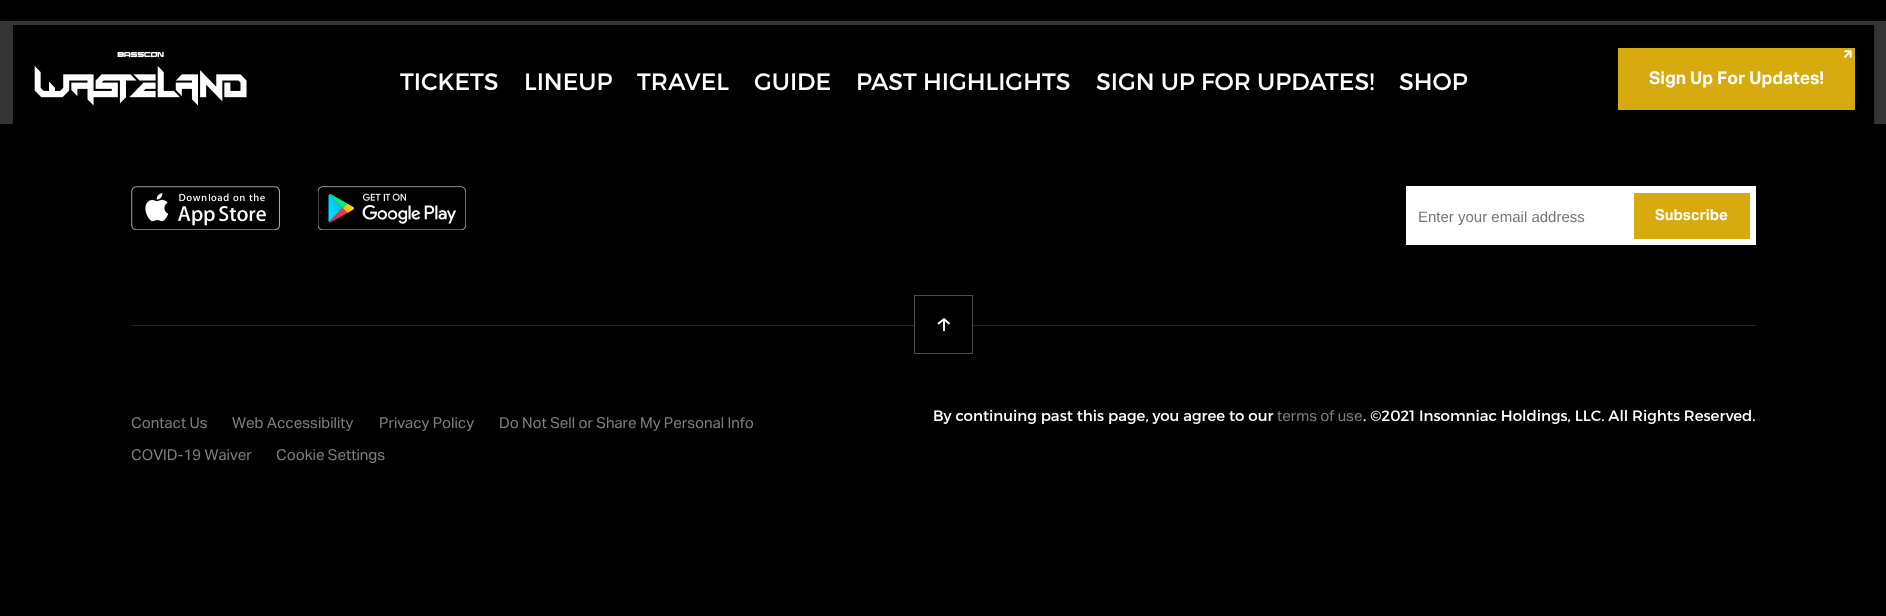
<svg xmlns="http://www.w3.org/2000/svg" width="1886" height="616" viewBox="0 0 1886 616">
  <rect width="100%" height="100%" fill="rgb(0,0,0)"/>
  <rect x="0" y="21" width="1886" height="103" fill="rgb(53,53,53)"/>
  <rect x="13" y="26" width="1861" height="107" fill="rgba(0,0,0,0.2)" filter="blur(2.5px)"/>
  <rect x="13" y="25" width="1861" height="99" fill="rgb(0,0,0)"/>
  <image x="34" y="52" width="213" height="54" href="pic1.png"/>
  <g font-family="Montserrat" font-size="23.75" fill="rgb(255,255,255)">
    <text x="400" y="90">TICKETS</text>
    <text x="524" y="90">LINEUP</text>
    <text x="637" y="90">TRAVEL</text>
    <text x="754" y="90">GUIDE</text>
    <text x="856" y="90">PAST HIGHLIGHTS</text>
    <text x="1096" y="90">SIGN UP FOR UPDATES!</text>
    <text x="1399" y="90">SHOP</text>
  </g>
  <rect x="1618" y="48" width="237" height="62" fill="rgb(215,170,15)"/>
  <image x="1844" y="50" width="8" height="8" href="pic2.png"/>
  <text x="1649" y="84" font-family="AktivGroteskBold" font-size="17.5" fill="rgb(255,255,255)">Sign Up For Updates!</text>
  <image x="131" y="186" width="149" height="44" href="pic3.png"/>
  <image x="318" y="186" width="148" height="44" href="pic4.png"/>
  <rect x="1406" y="186" width="350" height="59" fill="rgb(255,255,255)"/>
  <text x="1418" y="222" font-family="Liberation Sans" font-size="15" fill="rgb(117,117,117)">Enter your email address</text>
  <rect x="1634" y="193" width="116" height="46" fill="rgb(215,170,15)"/>
  <text x="1655" y="220" font-family="AktivGroteskBold" font-size="15" fill="rgb(255,255,255)">Subscribe</text>
  <rect x="131" y="325" width="1625" height="1" fill="rgb(38,38,38)"/>
  <rect x="915" y="325" width="57" height="1" fill="rgb(0,0,0)"/>
  <rect x="943" y="319" width="2" height="12" fill="rgb(242,242,242)"/>
  <path d="M938 324L944 319L949.5 324" fill="none" stroke="rgb(255,255,255)" stroke-width="1.9"/>
  <rect x="914.5" y="295.5" width="58" height="58" fill="none" stroke="rgb(76,76,76)"/>
  <g font-family="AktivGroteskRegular" font-size="15" fill="rgb(127,127,127)">
    <text x="131" y="428">Contact Us</text>
    <text x="232" y="428">Web Accessibility</text>
    <text x="379" y="428">Privacy Policy</text>
    <text x="499" y="428">Do Not Sell or Share My Personal Info</text>
    <text x="131" y="460">COVID-19 Waiver</text>
    <text x="276" y="460">Cookie Settings</text>
  </g>
  <text x="933" y="421" font-family="Montserrat" font-size="15" fill="rgb(255,255,255)">By continuing past this page, you agree to our</text>
  <text x="1277" y="421" font-family="AktivGroteskRegular" font-size="15" fill="rgb(127,127,127)">terms of use</text>
  <text x="1363" y="421" font-family="Montserrat" font-size="15" fill="rgb(255,255,255)">. ©2021 Insomniac Holdings, LLC. All Rights Reserved.</text>
</svg>
